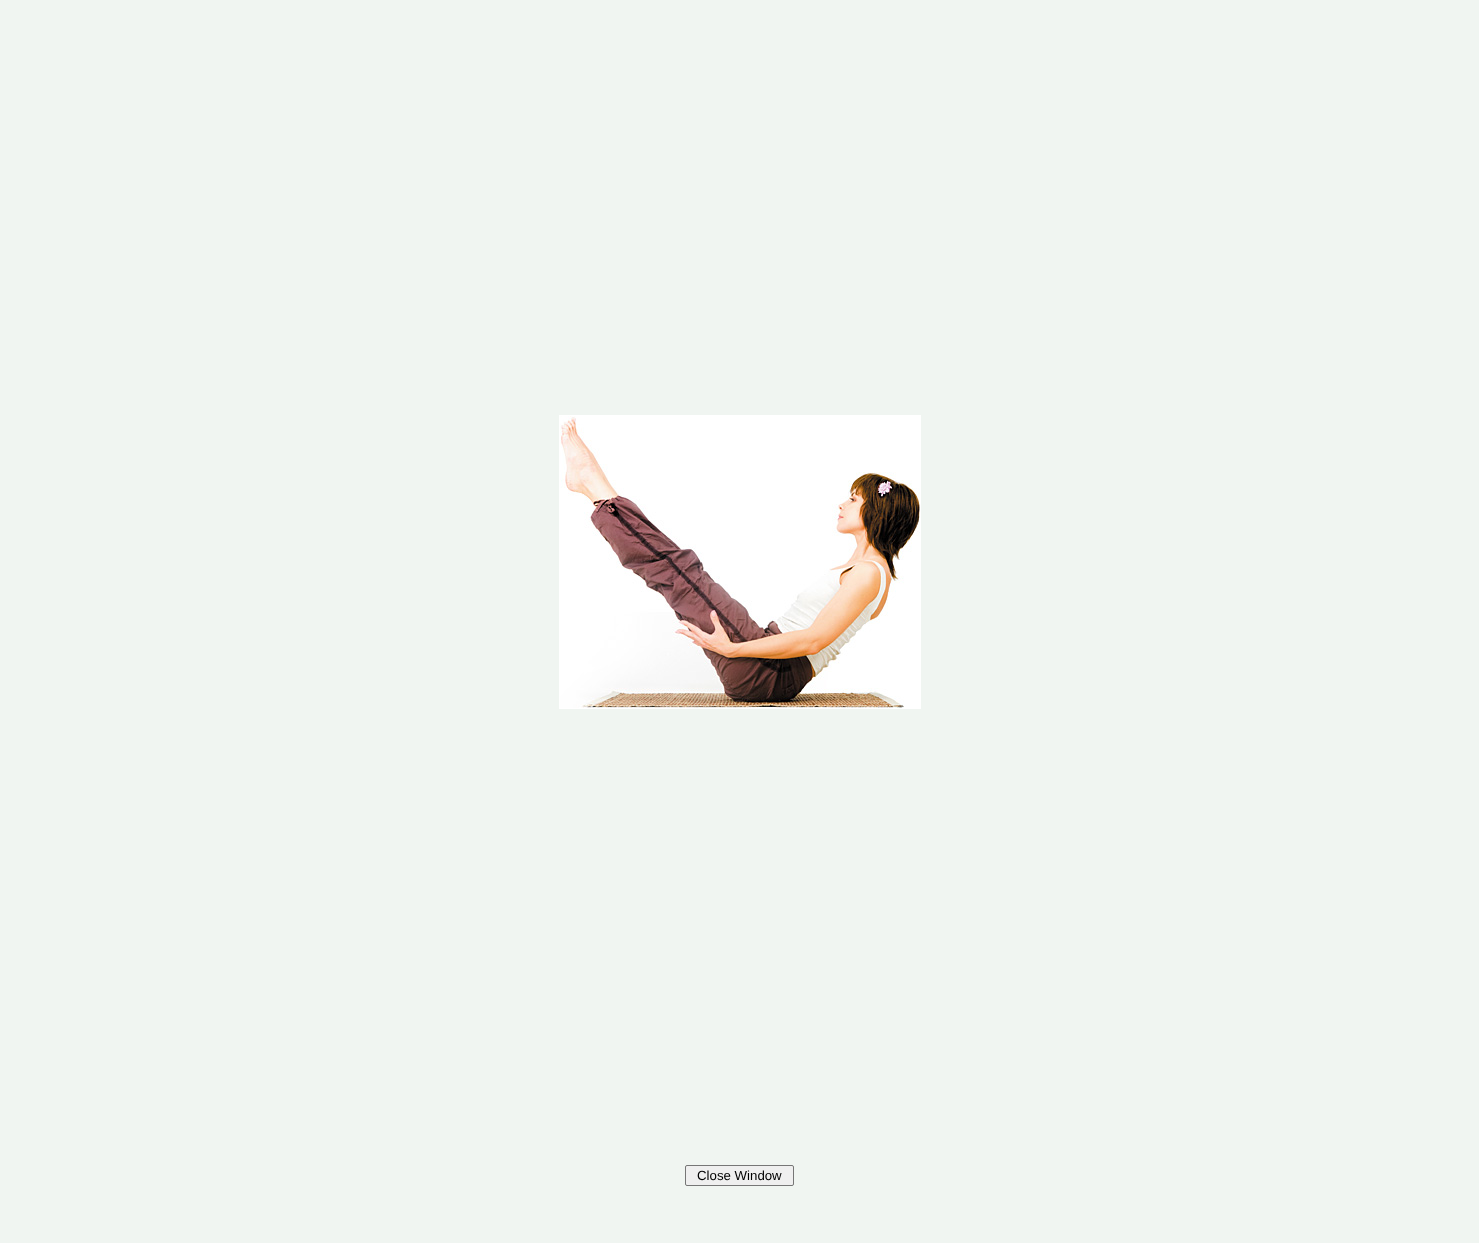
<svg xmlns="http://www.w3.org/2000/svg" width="1479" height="1243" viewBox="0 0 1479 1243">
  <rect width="100%" height="100%" fill="rgb(240,245,241)"/>
  <rect x="559.5" y="415.5" width="361" height="293" fill="none" stroke="rgb(255,255,255)"/>
  <image x="560" y="416" width="360" height="292" href="pic1.png"/>
  <rect x="685.5" y="1165.5" width="108" height="20" rx="1.5" fill="rgb(239,239,239)" stroke="rgb(118,118,118)"/>
  <text x="697" y="1180" font-family="Liberation Sans" font-size="13.25" fill="rgb(0,0,0)">Close Window</text>
</svg>
